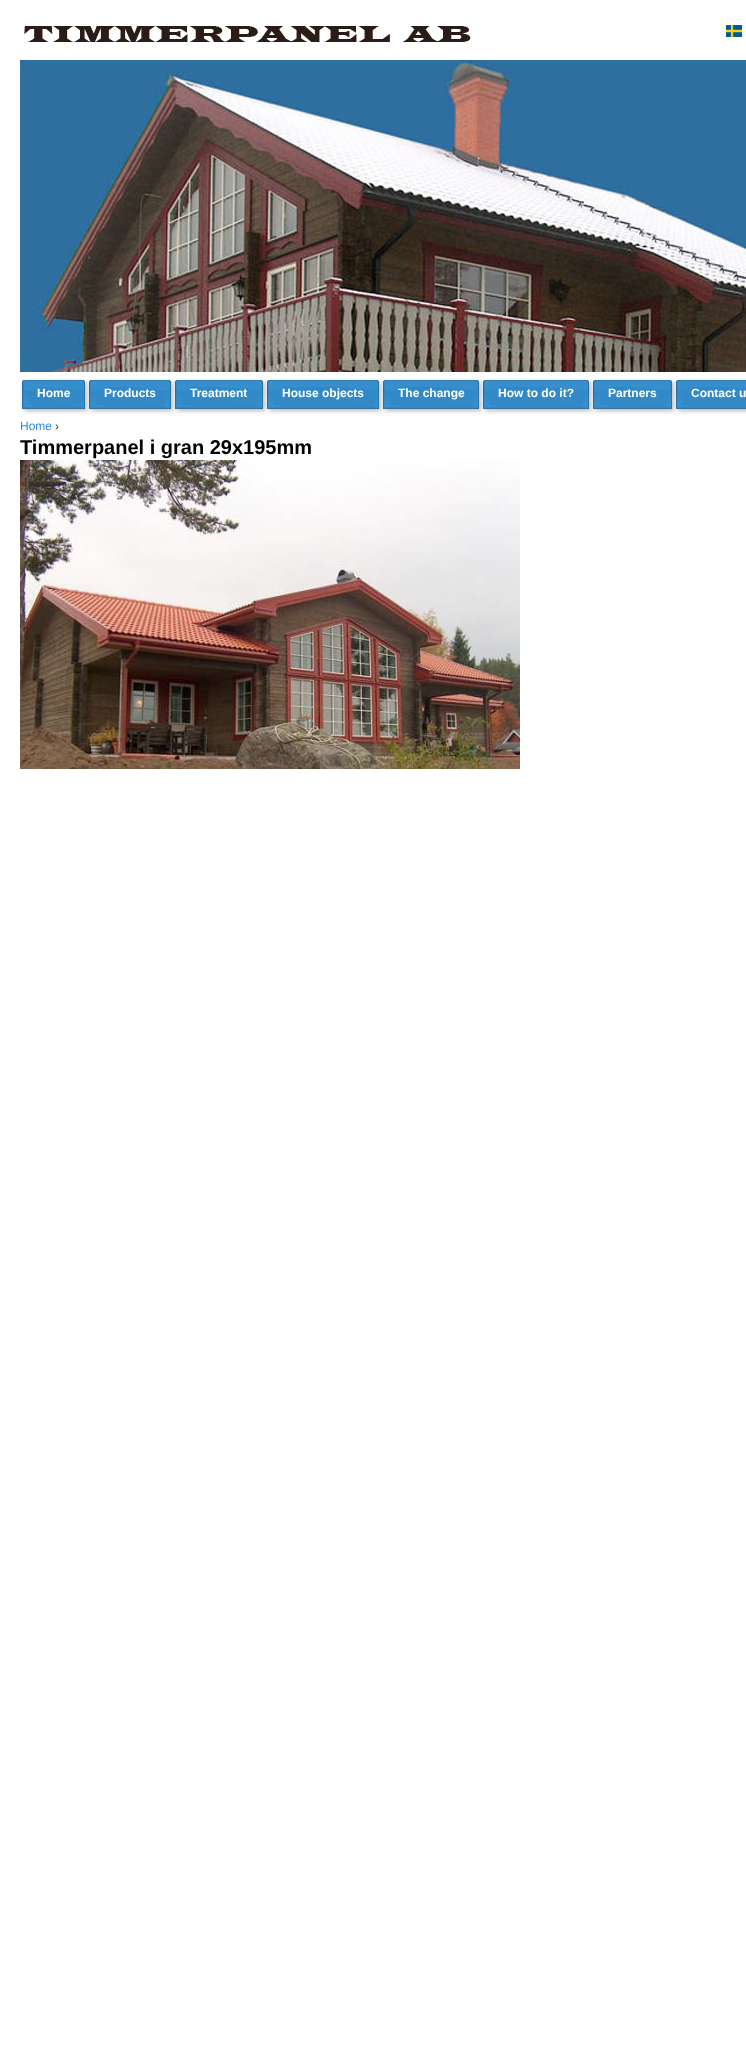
<svg xmlns="http://www.w3.org/2000/svg" width="746" height="2062" viewBox="0 0 746 2062">
  <rect width="100%" height="100%" fill="rgb(255,255,255)"/>
  <image x="20" y="60" width="726" height="312" href="pic1.png"/>
  <image x="24" y="26" width="447" height="16" href="pic2.png"/>
  <image x="726" y="25" width="16" height="12" href="pic3.png"/>
  <rect x="24" y="382" width="63" height="29" fill="rgb(187,187,187)" filter="blur(2px)"/>
  <image x="22" y="380" width="63" height="29" href="pic4.png"/>
  <image x="37" y="380" width="48" height="28" href="pic5.png"/>
  <text x="37" y="397" font-family="Liberation Sans" font-size="12" font-weight="bold" fill="rgb(255,255,255)">Home</text>
  <rect x="91" y="382" width="82" height="29" fill="rgb(187,187,187)" filter="blur(2px)"/>
  <image x="89" y="380" width="82" height="29" href="pic6.png"/>
  <image x="104" y="380" width="67" height="28" href="pic7.png"/>
  <text x="104" y="397" font-family="Liberation Sans" font-size="12" font-weight="bold" fill="rgb(255,255,255)">Products</text>
  <rect x="177" y="382" width="88" height="29" fill="rgb(187,187,187)" filter="blur(2px)"/>
  <image x="175" y="380" width="88" height="29" href="pic8.png"/>
  <image x="190" y="380" width="73" height="28" href="pic9.png"/>
  <text x="190" y="397" font-family="Liberation Sans" font-size="12" font-weight="bold" fill="rgb(255,255,255)">Treatment</text>
  <rect x="269" y="382" width="112" height="29" fill="rgb(187,187,187)" filter="blur(2px)"/>
  <image x="267" y="380" width="112" height="29" href="pic10.png"/>
  <image x="282" y="380" width="97" height="28" href="pic11.png"/>
  <text x="282" y="397" font-family="Liberation Sans" font-size="12" font-weight="bold" fill="rgb(255,255,255)">House objects</text>
  <rect x="385" y="382" width="96" height="29" fill="rgb(187,187,187)" filter="blur(2px)"/>
  <image x="383" y="380" width="96" height="29" href="pic12.png"/>
  <image x="398" y="380" width="81" height="28" href="pic13.png"/>
  <text x="398" y="397" font-family="Liberation Sans" font-size="12" font-weight="bold" fill="rgb(255,255,255)">The change</text>
  <rect x="485" y="382" width="106" height="29" fill="rgb(187,187,187)" filter="blur(2px)"/>
  <image x="483" y="380" width="106" height="29" href="pic14.png"/>
  <image x="498" y="380" width="91" height="28" href="pic15.png"/>
  <text x="498" y="397" font-family="Liberation Sans" font-size="12" font-weight="bold" fill="rgb(255,255,255)">How to do it?</text>
  <rect x="595" y="382" width="79" height="29" fill="rgb(187,187,187)" filter="blur(2px)"/>
  <image x="593" y="380" width="79" height="29" href="pic16.png"/>
  <image x="608" y="380" width="64" height="28" href="pic17.png"/>
  <text x="608" y="397" font-family="Liberation Sans" font-size="12" font-weight="bold" fill="rgb(255,255,255)">Partners</text>
  <rect x="678" y="382" width="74" height="29" fill="rgb(187,187,187)" filter="blur(2px)"/>
  <image x="676" y="380" width="70" height="29" href="pic18.png"/>
  <image x="691" y="387" width="55" height="20" href="pic19.png"/>
  <text x="691" y="397" font-family="Liberation Sans" font-size="12" font-weight="bold" fill="rgb(255,255,255)">Contact u</text>
  <text x="20" y="430" font-family="Liberation Sans" font-size="12" fill="rgb(44,139,229)">Home</text>
  <text x="55" y="430" font-family="Liberation Sans" font-size="12" fill="rgb(56,56,56)">›</text>
  <text x="20" y="454" font-family="Liberation Sans" font-size="20" font-weight="bold" fill="rgb(0,0,0)">Timmerpanel i gran 29x195mm</text>
  <image x="20" y="460" width="500" height="309" href="pic20.png"/>
</svg>
